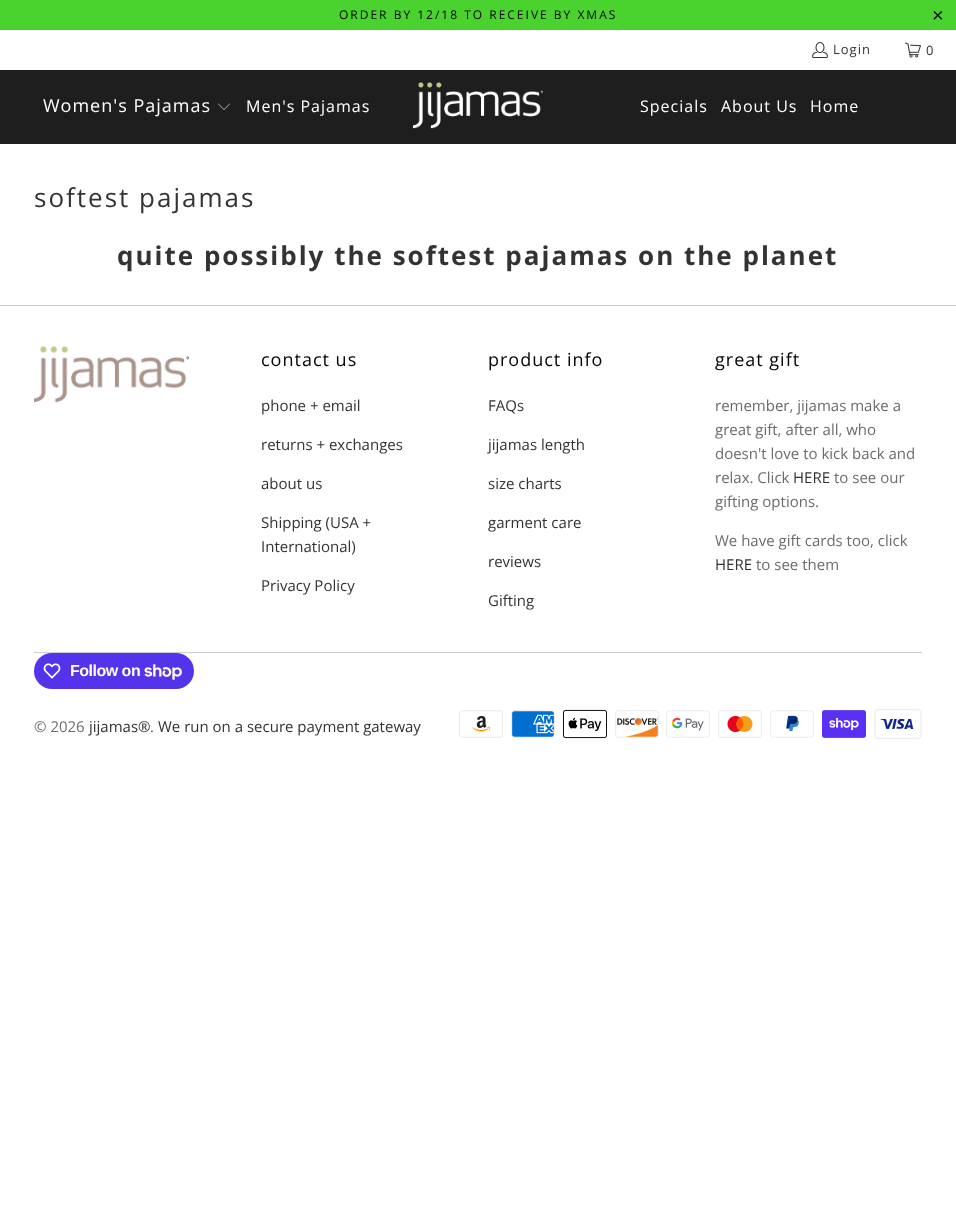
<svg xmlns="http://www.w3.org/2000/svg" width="956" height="1218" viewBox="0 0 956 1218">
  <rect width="100%" height="100%" fill="rgb(255,255,255)"/>
  <rect x="0" y="0" width="956" height="30" fill="rgb(74,210,47)"/>
  <text x="339" y="19" font-family="Open Sans" font-size="12" letter-spacing="2" fill="rgb(4,4,4)">ORDER BY 12/18 TO RECEIVE BY XMAS</text>
  <text x="932" y="22" font-family="Liberation Sans" font-size="20" letter-spacing="2" fill="rgb(4,4,4)">×</text>
  <image x="812" y="42" width="16" height="16" href="pic1.png"/>
  <text x="833" y="54" font-family="Open Sans" font-size="13" letter-spacing="1" fill="rgb(51,51,51)">Login</text>
  <image x="905" y="42" width="16" height="16" href="pic2.png"/>
  <text x="926" y="55" font-family="Open Sans" font-size="13" letter-spacing="1" fill="rgb(51,51,51)">0</text>
  <rect x="0" y="70" width="956" height="74" fill="rgb(30,30,30)"/>
  <text x="43" y="112" font-family="Open Sans" font-size="18" letter-spacing="1" fill="rgb(255,255,255)">Women's Pajamas</text>
  <image x="218" y="103" width="12" height="7" href="pic3.png"/>
  <text x="246" y="112" font-family="Open Sans" font-size="16" letter-spacing="1" fill="rgb(255,255,255)">Men's Pajamas</text>
  <image x="413" y="82" width="130" height="47" href="pic4.png"/>
  <g font-family="Open Sans" font-size="16" letter-spacing="1" fill="rgb(255,255,255)">
    <text x="640" y="112">Specials</text>
    <text x="721" y="112">About Us</text>
    <text x="810" y="112">Home</text>
  </g>
  <text x="34" y="207" font-family="Open Sans" font-size="26" letter-spacing="2" fill="rgb(51,51,51)">softest pajamas</text>
  <text x="117" y="265" font-family="Open Sans" font-size="26" font-weight="bold" letter-spacing="2" fill="rgb(51,51,51)">quite possibly the softest pajamas on the planet</text>
  <rect x="0" y="305" width="956" height="1" fill="rgb(204,204,204)"/>
  <image x="34" y="346" width="155" height="57" href="pic5.png"/>
  <text x="261" y="366" font-family="Open Sans" font-size="18" letter-spacing="1" fill="rgb(4,4,4)">contact us</text>
  <g font-family="Open Sans" font-size="15" fill="rgb(51,51,51)">
    <text x="261" y="411">phone + email</text>
    <text x="261" y="450">returns + exchanges</text>
    <text x="261" y="489">about us</text>
    <text>
      <tspan x="261" y="528">Shipping (USA +</tspan>
      <tspan x="261" y="552">International)</tspan>
    </text>
    <text x="261" y="591">Privacy Policy</text>
  </g>
  <text x="488" y="366" font-family="Open Sans" font-size="18" letter-spacing="1" fill="rgb(4,4,4)">product info</text>
  <g font-family="Open Sans" font-size="15" fill="rgb(51,51,51)">
    <text x="488" y="411">FAQs</text>
    <text x="488" y="450">jijamas length</text>
    <text x="488" y="489">size charts</text>
    <text x="488" y="528">garment care</text>
    <text x="488" y="567">reviews</text>
    <text x="488" y="606">Gifting</text>
  </g>
  <text x="715" y="366" font-family="Open Sans" font-size="18" letter-spacing="1" fill="rgb(4,4,4)">great gift</text>
  <g font-family="Open Sans" font-size="15" fill="rgb(107,107,107)">
    <text>
      <tspan x="715" y="411">remember, jijamas make a</tspan>
      <tspan x="715" y="435">great gift, after all, who</tspan>
      <tspan x="715" y="459">doesn't love to kick back and</tspan>
      <tspan x="715" y="483">relax. Click</tspan>
    </text>
  </g>
  <text x="793" y="483" font-family="Open Sans" font-size="15" fill="rgb(51,51,51)">HERE</text>
  <g font-family="Open Sans" font-size="15" fill="rgb(107,107,107)">
    <text x="834" y="483">to see our</text>
    <text x="715" y="507">gifting options.</text>
    <text x="715" y="546">We have gift cards too, click</text>
  </g>
  <text x="715" y="570" font-family="Open Sans" font-size="15" fill="rgb(51,51,51)">HERE</text>
  <text x="756" y="570" font-family="Open Sans" font-size="15" fill="rgb(107,107,107)">to see them</text>
  <rect x="34" y="652" width="888" height="1" fill="rgb(204,204,204)"/>
  <rect x="34" y="653" width="160" height="36" rx="18" fill="rgb(84,51,235)"/>
  <image x="43" y="663" width="18" height="16" href="pic6.png"/>
  <text x="70" y="676" font-family="Liberation Sans" font-size="16" font-weight="bold" letter-spacing="-0.5" fill="rgb(255,255,255)">Follow on</text>
  <image x="144" y="664" width="38" height="16" href="pic7.png"/>
  <text x="34" y="732" font-family="Open Sans" font-size="15" fill="rgb(107,107,107)">© 2026</text>
  <text x="89" y="732" font-family="Open Sans" font-size="15" fill="rgb(51,51,51)">jijamas®</text>
  <text x="150" y="732" font-family="Open Sans" font-size="15" fill="rgb(107,107,107)">.</text>
  <text x="158" y="732" font-family="Open Sans" font-size="15" fill="rgb(51,51,51)">We run on a secure payment gateway</text>
  <image x="459" y="710" width="44" height="28" href="pic8.png"/>
  <image x="511" y="710" width="44" height="28" href="pic9.png"/>
  <image x="563" y="709" width="44" height="30" href="pic10.png"/>
  <image x="615" y="710" width="44" height="28" href="pic11.png"/>
  <image x="666" y="710" width="44" height="28" href="pic12.png"/>
  <image x="718" y="710" width="44" height="28" href="pic13.png"/>
  <image x="770" y="710" width="44" height="28" href="pic14.png"/>
  <image x="822" y="710" width="44" height="28" href="pic15.png"/>
  <image x="874" y="709" width="48" height="30" href="pic16.png"/>
</svg>
